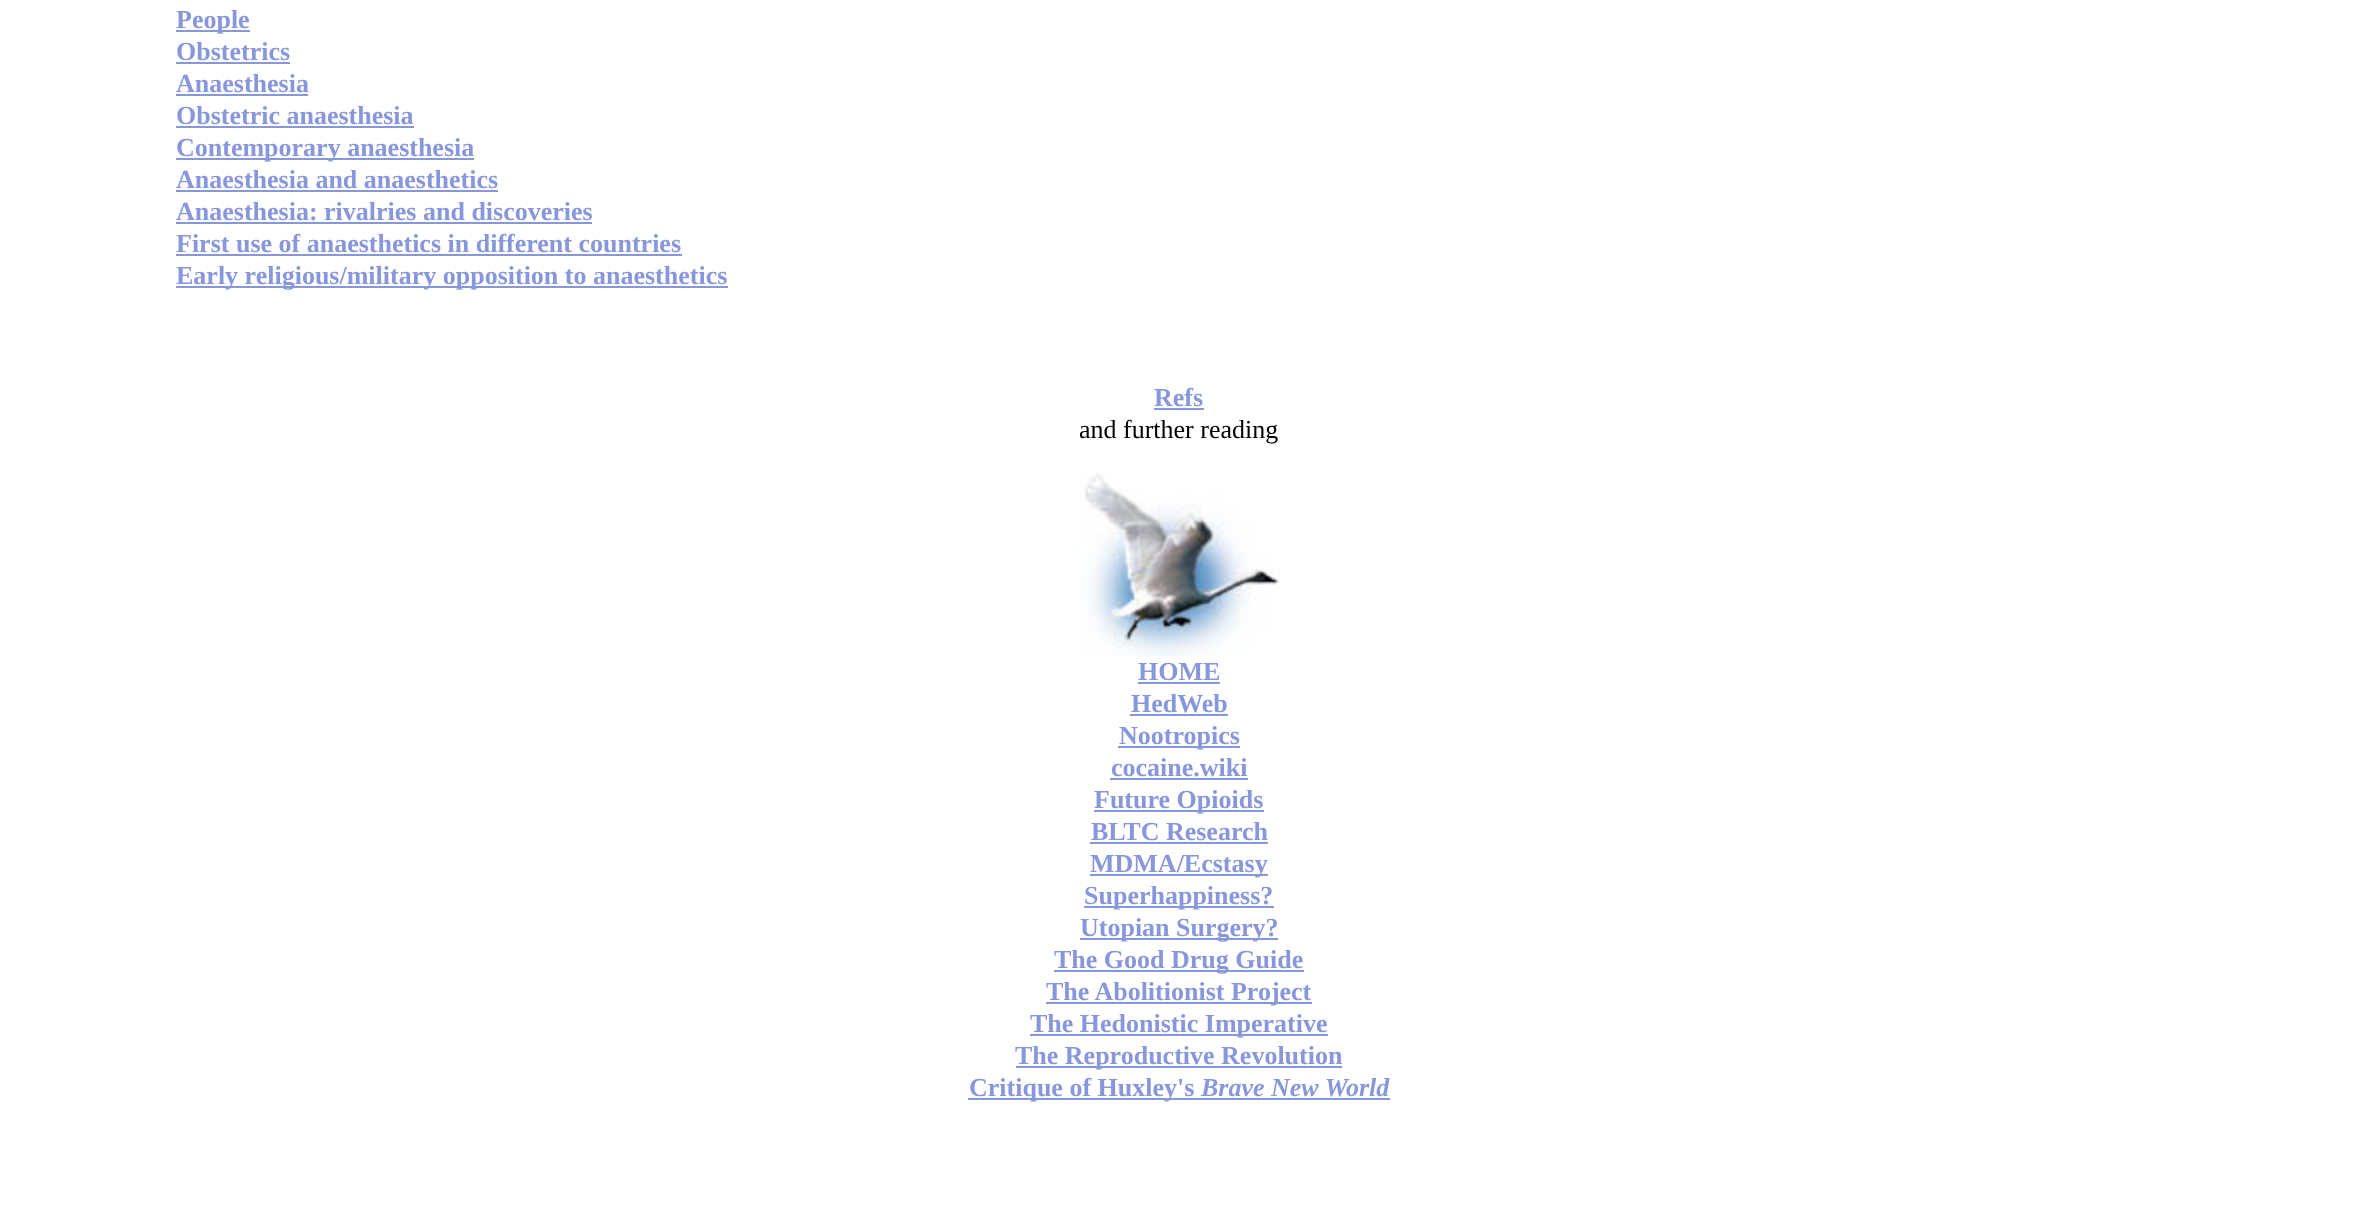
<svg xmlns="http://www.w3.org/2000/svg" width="2358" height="1219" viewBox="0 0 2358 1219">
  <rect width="100%" height="100%" fill="rgb(255,255,255)"/>
  <rect x="176" y="30" width="74" height="2" fill="rgb(136,151,219)"/>
  <g font-family="Liberation Serif" font-size="26" font-weight="bold" fill="rgb(136,151,219)">
    <text>
      <tspan x="176" y="28">People</tspan>
      <tspan x="176" y="60">Obstetrics</tspan>
    </text>
  </g>
  <rect x="176" y="62" width="114" height="2" fill="rgb(136,151,219)"/>
  <text x="176" y="92" font-family="Liberation Serif" font-size="26" font-weight="bold" fill="rgb(136,151,219)">Anaesthesia</text>
  <rect x="176" y="94" width="132" height="2" fill="rgb(136,151,219)"/>
  <text x="176" y="124" font-family="Liberation Serif" font-size="26" font-weight="bold" fill="rgb(136,151,219)">Obstetric anaesthesia</text>
  <rect x="176" y="126" width="238" height="2" fill="rgb(136,151,219)"/>
  <rect x="176" y="158" width="298" height="2" fill="rgb(136,151,219)"/>
  <g font-family="Liberation Serif" font-size="26" font-weight="bold" fill="rgb(136,151,219)">
    <text>
      <tspan x="176" y="156">Contemporary anaesthesia</tspan>
      <tspan x="176" y="188">Anaesthesia and anaesthetics</tspan>
    </text>
  </g>
  <rect x="176" y="190" width="322" height="2" fill="rgb(136,151,219)"/>
  <text x="176" y="220" font-family="Liberation Serif" font-size="26" font-weight="bold" fill="rgb(136,151,219)">Anaesthesia: rivalries and discoveries</text>
  <rect x="176" y="222" width="416" height="2" fill="rgb(136,151,219)"/>
  <text x="176" y="252" font-family="Liberation Serif" font-size="26" font-weight="bold" fill="rgb(136,151,219)">First use of anaesthetics in different countries</text>
  <rect x="176" y="254" width="506" height="2" fill="rgb(136,151,219)"/>
  <rect x="176" y="286" width="552" height="2" fill="rgb(136,151,219)"/>
  <g font-family="Liberation Serif" font-size="26" font-weight="bold" fill="rgb(136,151,219)">
    <text x="176" y="284">Early religious/military opposition to anaesthetics</text>
    <text x="1154" y="406">Refs</text>
  </g>
  <rect x="1154" y="408" width="50" height="2" fill="rgb(136,151,219)"/>
  <text x="1079" y="438" font-family="Liberation Serif" font-size="26" fill="rgb(0,0,0)">and further reading</text>
  <image x="1080" y="472" width="200" height="184" href="pic1.png"/>
  <text x="1138" y="680" font-family="Liberation Serif" font-size="26" font-weight="bold" fill="rgb(136,151,219)">HOME</text>
  <rect x="1138" y="682" width="82" height="2" fill="rgb(136,151,219)"/>
  <text x="1131" y="712" font-family="Liberation Serif" font-size="26" font-weight="bold" fill="rgb(136,151,219)">HedWeb</text>
  <rect x="1130" y="714" width="98" height="2" fill="rgb(136,151,219)"/>
  <rect x="1118" y="746" width="122" height="2" fill="rgb(136,151,219)"/>
  <g font-family="Liberation Serif" font-size="26" font-weight="bold" fill="rgb(136,151,219)">
    <text x="1119" y="744">Nootropics</text>
    <text x="1111" y="776">cocaine.wiki</text>
  </g>
  <rect x="1110" y="778" width="138" height="2" fill="rgb(136,151,219)"/>
  <rect x="1094" y="810" width="170" height="2" fill="rgb(136,151,219)"/>
  <g font-family="Liberation Serif" font-size="26" font-weight="bold" fill="rgb(136,151,219)">
    <text x="1094" y="808">Future Opioids</text>
    <text x="1091" y="840">BLTC Research</text>
  </g>
  <rect x="1090" y="842" width="178" height="2" fill="rgb(136,151,219)"/>
  <rect x="1090" y="874" width="178" height="2" fill="rgb(136,151,219)"/>
  <text x="1090" y="872" font-family="Liberation Serif" font-size="26" font-weight="bold" fill="rgb(136,151,219)">MDMA/Ecstasy</text>
  <rect x="1084" y="906" width="190" height="2" fill="rgb(136,151,219)"/>
  <text x="1084" y="904" font-family="Liberation Serif" font-size="26" font-weight="bold" fill="rgb(136,151,219)">Superhappiness?</text>
  <rect x="1080" y="938" width="198" height="2" fill="rgb(136,151,219)"/>
  <text x="1080" y="936" font-family="Liberation Serif" font-size="26" font-weight="bold" fill="rgb(136,151,219)">Utopian Surgery?</text>
  <rect x="1054" y="970" width="250" height="2" fill="rgb(136,151,219)"/>
  <text x="1054" y="968" font-family="Liberation Serif" font-size="26" font-weight="bold" fill="rgb(136,151,219)">The Good Drug Guide</text>
  <rect x="1046" y="1002" width="266" height="2" fill="rgb(136,151,219)"/>
  <text x="1046" y="1000" font-family="Liberation Serif" font-size="26" font-weight="bold" fill="rgb(136,151,219)">The Abolitionist Project</text>
  <rect x="1030" y="1034" width="298" height="2" fill="rgb(136,151,219)"/>
  <text x="1030" y="1032" font-family="Liberation Serif" font-size="26" font-weight="bold" fill="rgb(136,151,219)">The Hedonistic Imperative</text>
  <rect x="1016" y="1066" width="326" height="2" fill="rgb(136,151,219)"/>
  <text x="1015" y="1064" font-family="Liberation Serif" font-size="26" font-weight="bold" fill="rgb(136,151,219)">The Reproductive Revolution</text>
  <rect x="968" y="1098" width="422" height="2" fill="rgb(136,151,219)"/>
  <text x="969" y="1096" font-family="Liberation Serif" font-size="26" font-weight="bold" fill="rgb(136,151,219)">Critique of Huxley's</text>
  <text x="1201" y="1096" font-family="Liberation Serif" font-size="26" font-weight="bold" font-style="italic" fill="rgb(136,151,219)">Brave New World</text>
</svg>
